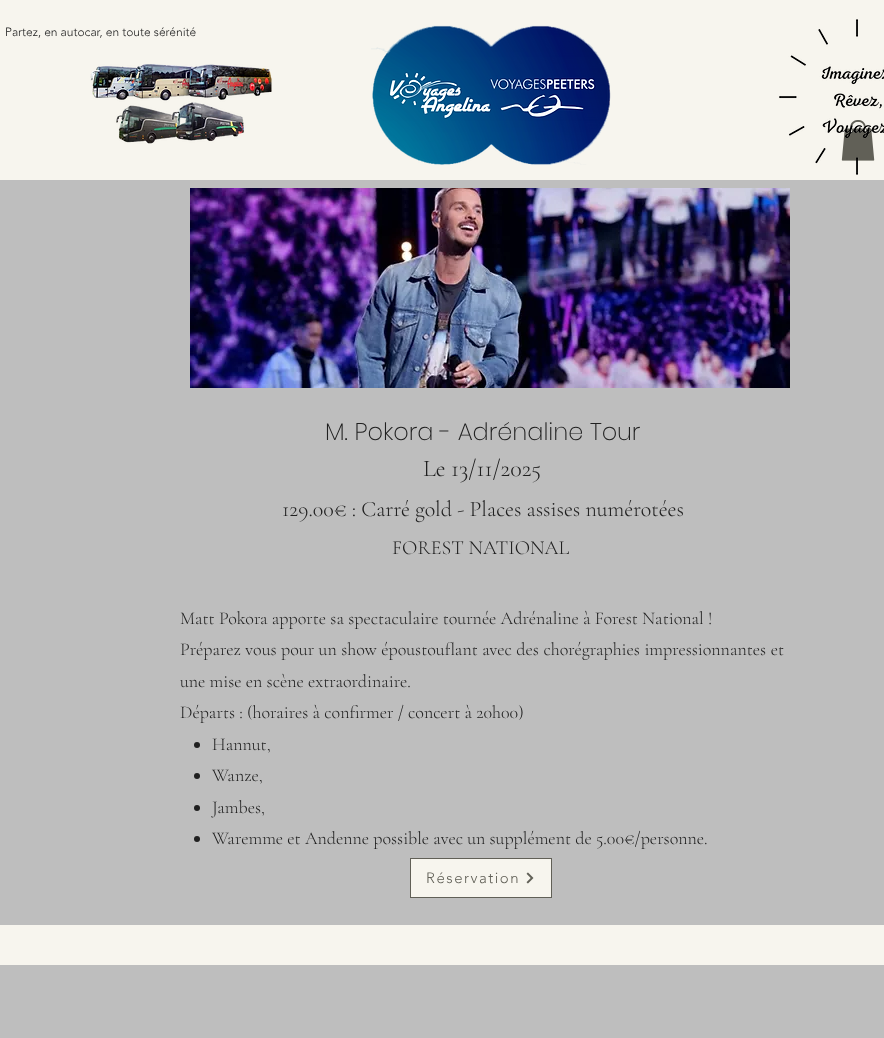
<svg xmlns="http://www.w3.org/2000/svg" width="884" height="1038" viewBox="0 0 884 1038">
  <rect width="100%" height="100%" fill="rgb(190,190,190)"/>
  <rect x="0" y="0" width="884" height="180" fill="rgb(247,245,238)"/>
  <text x="5" y="36" font-family="'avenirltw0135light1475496'" font-size="12" font-weight="300" fill="rgb(32,32,32)">Partez, en autocar, en toute sérénité</text>
  <image x="371" y="25" width="240" height="140" href="pic1.png"/>
  <image x="841" y="120" width="34" height="41" href="pic4.png"/>
  <image x="779" y="19" width="105" height="156" href="pic2.png"/>
  <image x="90" y="64" width="182" height="80" href="pic3.png"/>
  <image x="190" y="188" width="600" height="200" href="pic5.png"/>
  <text x="325" y="440" font-family="Poppins" font-size="24" font-weight="200" fill="rgb(32,32,32)">M. Pokora - Adrénaline Tour</text>
  <text x="423" y="476" font-family="Cormorant Garamond" font-size="24" font-weight="300" fill="rgb(32,32,32)">Le 13/11/2025</text>
  <text x="282" y="516" font-family="Cormorant Garamond" font-size="22" font-weight="300" fill="rgb(32,32,32)">129.00€ : Carré gold - Places assises numérotées</text>
  <text x="392" y="554" font-family="Cormorant Garamond" font-size="20" font-weight="300" fill="rgb(32,32,32)">FOREST NATIONAL</text>
  <g font-family="Cormorant Garamond" font-size="18" font-weight="300" fill="rgb(32,32,32)">
    <text>
      <tspan x="180" y="624">Matt Pokora apporte sa spectaculaire tournée Adrénaline à Forest National !</tspan>
      <tspan x="180" y="655" word-spacing="0.25">Préparez vous pour un show époustouflant avec des chorégraphies impressionnantes et</tspan>
      <tspan x="180" y="687">une mise en scène extraordinaire.</tspan>
      <tspan x="180" y="718">Départs : (horaires à confirmer / concert à 20h00)</tspan>
    </text>
  </g>
  <circle cx="197" cy="745" r="3" fill="rgb(32,32,32)"/>
  <text x="212" y="750" font-family="Cormorant Garamond" font-size="18" font-weight="300" fill="rgb(32,32,32)">Hannut,</text>
  <circle cx="197" cy="776" r="3" fill="rgb(32,32,32)"/>
  <text x="212" y="781" font-family="Cormorant Garamond" font-size="18" font-weight="300" fill="rgb(32,32,32)">Wanze,</text>
  <circle cx="197" cy="808" r="3" fill="rgb(32,32,32)"/>
  <text x="212" y="813" font-family="Cormorant Garamond" font-size="18" font-weight="300" fill="rgb(32,32,32)">Jambes,</text>
  <circle cx="197" cy="839" r="3" fill="rgb(32,32,32)"/>
  <text x="212" y="844" font-family="Cormorant Garamond" font-size="18" font-weight="300" fill="rgb(32,32,32)">Waremme et Andenne possible avec un supplément de 5.00€/personne.</text>
  <rect x="410.5" y="858.5" width="141" height="39" fill="rgb(247,245,238)" stroke="rgb(97,96,87)"/>
  <text x="426" y="883" font-family="'avenirltw0135light1475496'" font-size="15" font-weight="300" letter-spacing="1.5" fill="rgb(97,96,87)">Réservation</text>
  <image x="526" y="872" width="8" height="12" href="pic6.png"/>
  <rect x="0" y="925" width="884" height="40" fill="rgb(247,245,238)"/>
</svg>
